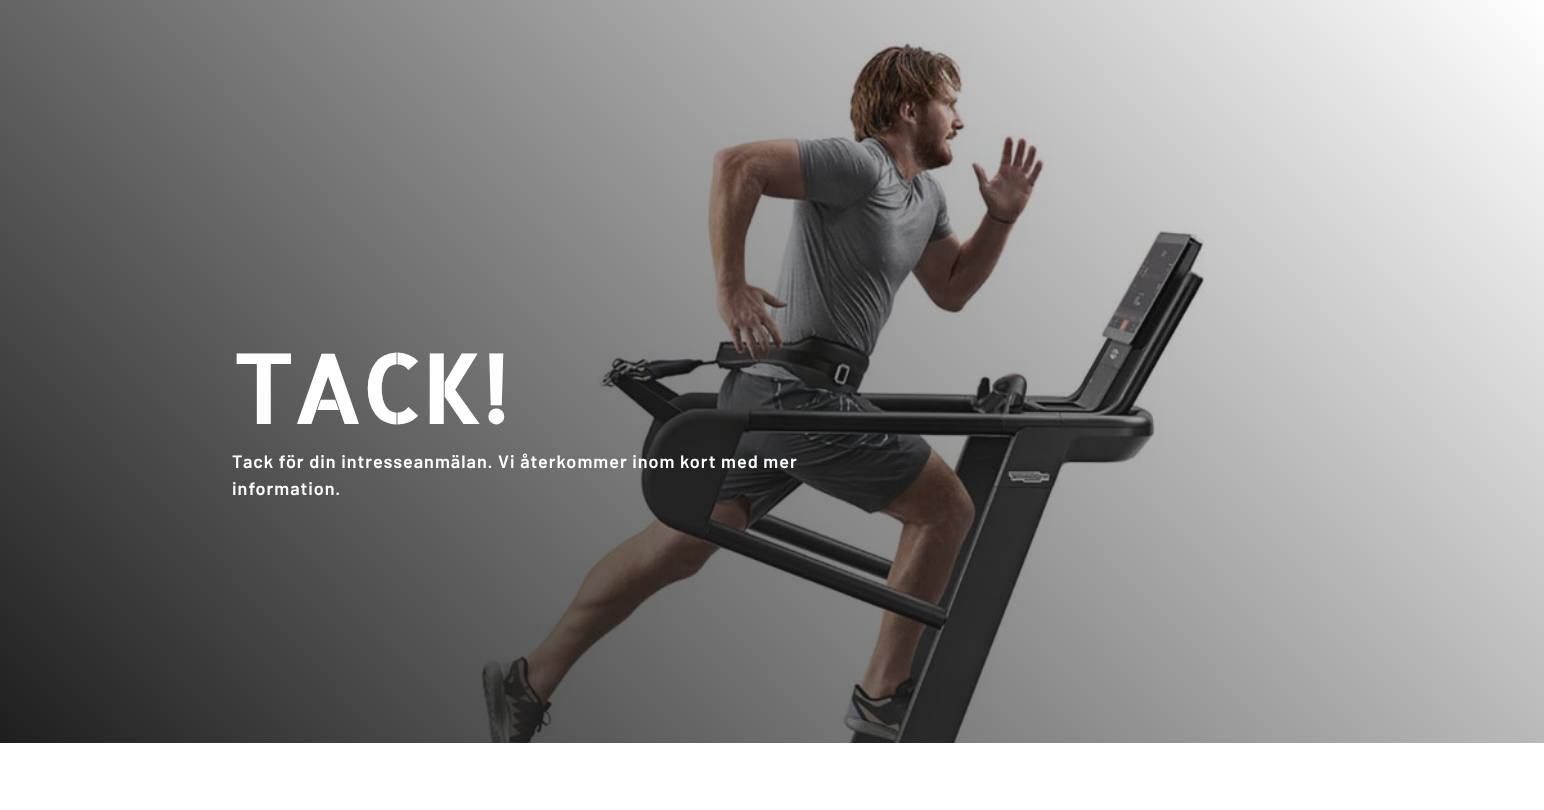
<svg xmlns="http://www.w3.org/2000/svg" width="1544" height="810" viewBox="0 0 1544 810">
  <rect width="100%" height="100%" fill="rgb(255,255,255)"/>
  <image x="0" y="0" width="1544" height="743" href="pic1.png"/>
  <text x="232" y="424" font-family="Allerta Stencil" font-size="94" font-weight="bold" letter-spacing="-1" fill="rgb(255,255,255)">TACK!</text>
  <g font-family="Barlow" font-size="18" font-weight="600" letter-spacing="1" fill="rgb(255,255,255)">
    <text>
      <tspan x="232" y="468">Tack för din intresseanmälan. Vi återkommer inom kort med mer</tspan>
      <tspan x="232" y="495">information.</tspan>
    </text>
  </g>
</svg>
